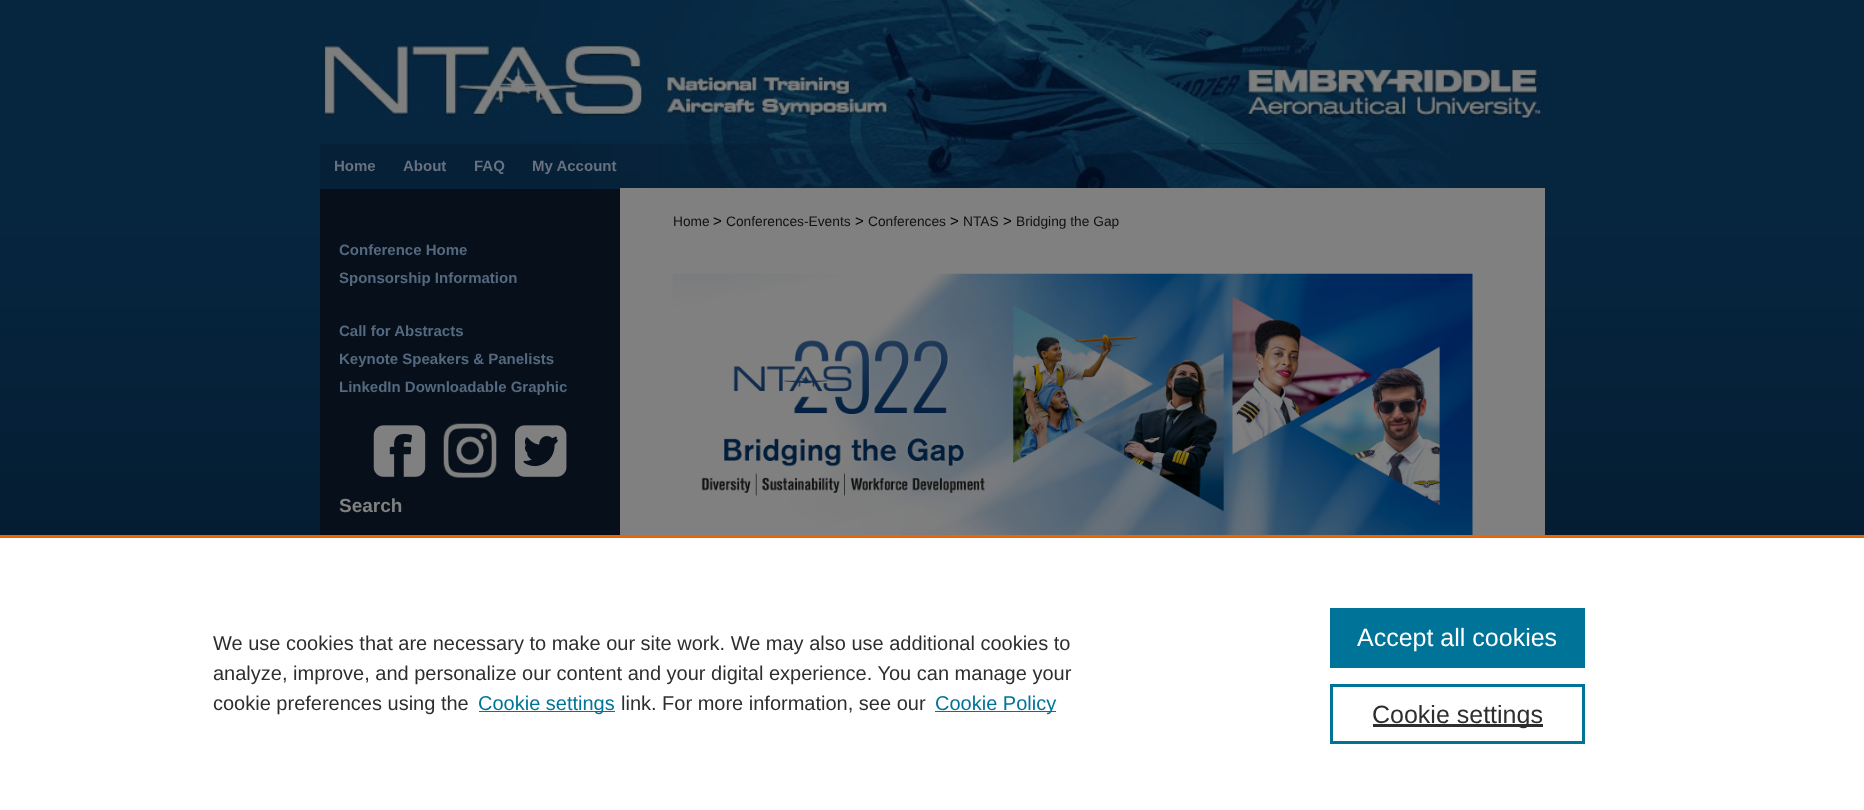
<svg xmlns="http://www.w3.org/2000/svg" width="1864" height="810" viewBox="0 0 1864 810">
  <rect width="100%" height="100%" fill="rgb(255,255,255)"/>
  <image x="0" y="0" width="1864" height="535" href="pic1.png"/>
  <image x="320" y="0" width="925" height="144" href="pic2.png"/>
  <image x="320" y="143" width="1130" height="46" href="pic4.png"/>
  <image x="1245" y="0" width="300" height="144" href="pic3.png"/>
  <g font-family="Liberation Sans" font-size="15" font-weight="bold" fill="rgb(103,113,128)">
    <text x="334" y="171">Home</text>
    <text x="403" y="171">About</text>
    <text x="474" y="171">FAQ</text>
    <text x="532" y="171">My Account</text>
  </g>
  <rect x="320" y="189" width="300" height="346" fill="rgb(7,16,26)"/>
  <rect x="620" y="188" width="925" height="347" fill="rgb(128,128,128)"/>
  <text x="673" y="226" font-family="Liberation Sans" font-size="13.75" fill="rgb(17,17,17)">Home</text>
  <text x="713" y="226" font-family="Liberation Sans" font-size="15" fill="rgb(0,0,0)">&gt;</text>
  <text x="726" y="226" font-family="Liberation Sans" font-size="13.75" fill="rgb(17,17,17)">Conferences-Events</text>
  <text x="855" y="226" font-family="Liberation Sans" font-size="15" fill="rgb(0,0,0)">&gt;</text>
  <text x="868" y="226" font-family="Liberation Sans" font-size="13.75" fill="rgb(17,17,17)">Conferences</text>
  <text x="950" y="226" font-family="Liberation Sans" font-size="15" fill="rgb(0,0,0)">&gt;</text>
  <text x="963" y="226" font-family="Liberation Sans" font-size="13.75" fill="rgb(17,17,17)">NTAS</text>
  <text x="1003" y="226" font-family="Liberation Sans" font-size="15" fill="rgb(0,0,0)">&gt;</text>
  <text x="1016" y="226" font-family="Liberation Sans" font-size="13.75" fill="rgb(17,17,17)">Bridging the Gap</text>
  <image x="672" y="273" width="801" height="262" href="pic5.png"/>
  <g font-family="Liberation Sans" font-size="15" font-weight="bold" fill="rgb(84,105,128)">
    <text>
      <tspan x="339" y="255">Conference Home</tspan>
      <tspan x="339" y="283">Sponsorship Information</tspan>
    </text>
    <text>
      <tspan x="339" y="336">Call for Abstracts</tspan>
      <tspan x="339" y="364">Keynote Speakers &amp; Panelists</tspan>
      <tspan x="339" y="392">LinkedIn Downloadable Graphic</tspan>
    </text>
  </g>
  <image x="373" y="425" width="53" height="52" href="pic6.png"/>
  <image x="443" y="423" width="54" height="55" href="pic7.png"/>
  <image x="515" y="425" width="52" height="52" href="pic8.png"/>
  <text x="339" y="512" font-family="Liberation Sans" font-size="19" font-weight="bold" fill="rgb(128,128,128)">Search</text>
  <rect x="0" y="535" width="1864" height="3" fill="rgb(235,101,0)"/>
  <g font-family="Liberation Sans" font-size="20" fill="rgb(46,46,46)">
    <text>
      <tspan x="213" y="650">We use cookies that are necessary to make our site work. We may also use additional cookies to</tspan>
      <tspan x="213" y="680">analyze, improve, and personalize our content and your digital experience. You can manage your</tspan>
      <tspan x="213" y="710">cookie preferences using the</tspan>
    </text>
  </g>
  <rect x="479" y="711" width="136" height="1" fill="rgb(0,115,152)"/>
  <text x="478" y="710" font-family="Liberation Sans" font-size="20" fill="rgb(0,115,152)">Cookie settings</text>
  <text x="621" y="710" font-family="Liberation Sans" font-size="20" fill="rgb(46,46,46)">link. For more information, see our</text>
  <rect x="935" y="711" width="121" height="1" fill="rgb(0,115,152)"/>
  <text x="935" y="710" font-family="Liberation Sans" font-size="20" fill="rgb(0,115,152)">Cookie Policy</text>
  <rect x="1330" y="608" width="255" height="60" fill="rgb(0,115,152)"/>
  <text x="1357" y="646" font-family="Liberation Sans" font-size="25" fill="rgb(255,255,255)">Accept all cookies</text>
  <rect x="1331.5" y="685.5" width="252" height="57" fill="none" stroke="rgb(0,115,152)" stroke-width="3"/>
  <rect x="1373" y="724" width="170" height="3" fill="rgb(46,46,46)"/>
  <text x="1372" y="723" font-family="Liberation Sans" font-size="25" fill="rgb(46,46,46)">Cookie settings</text>
</svg>
